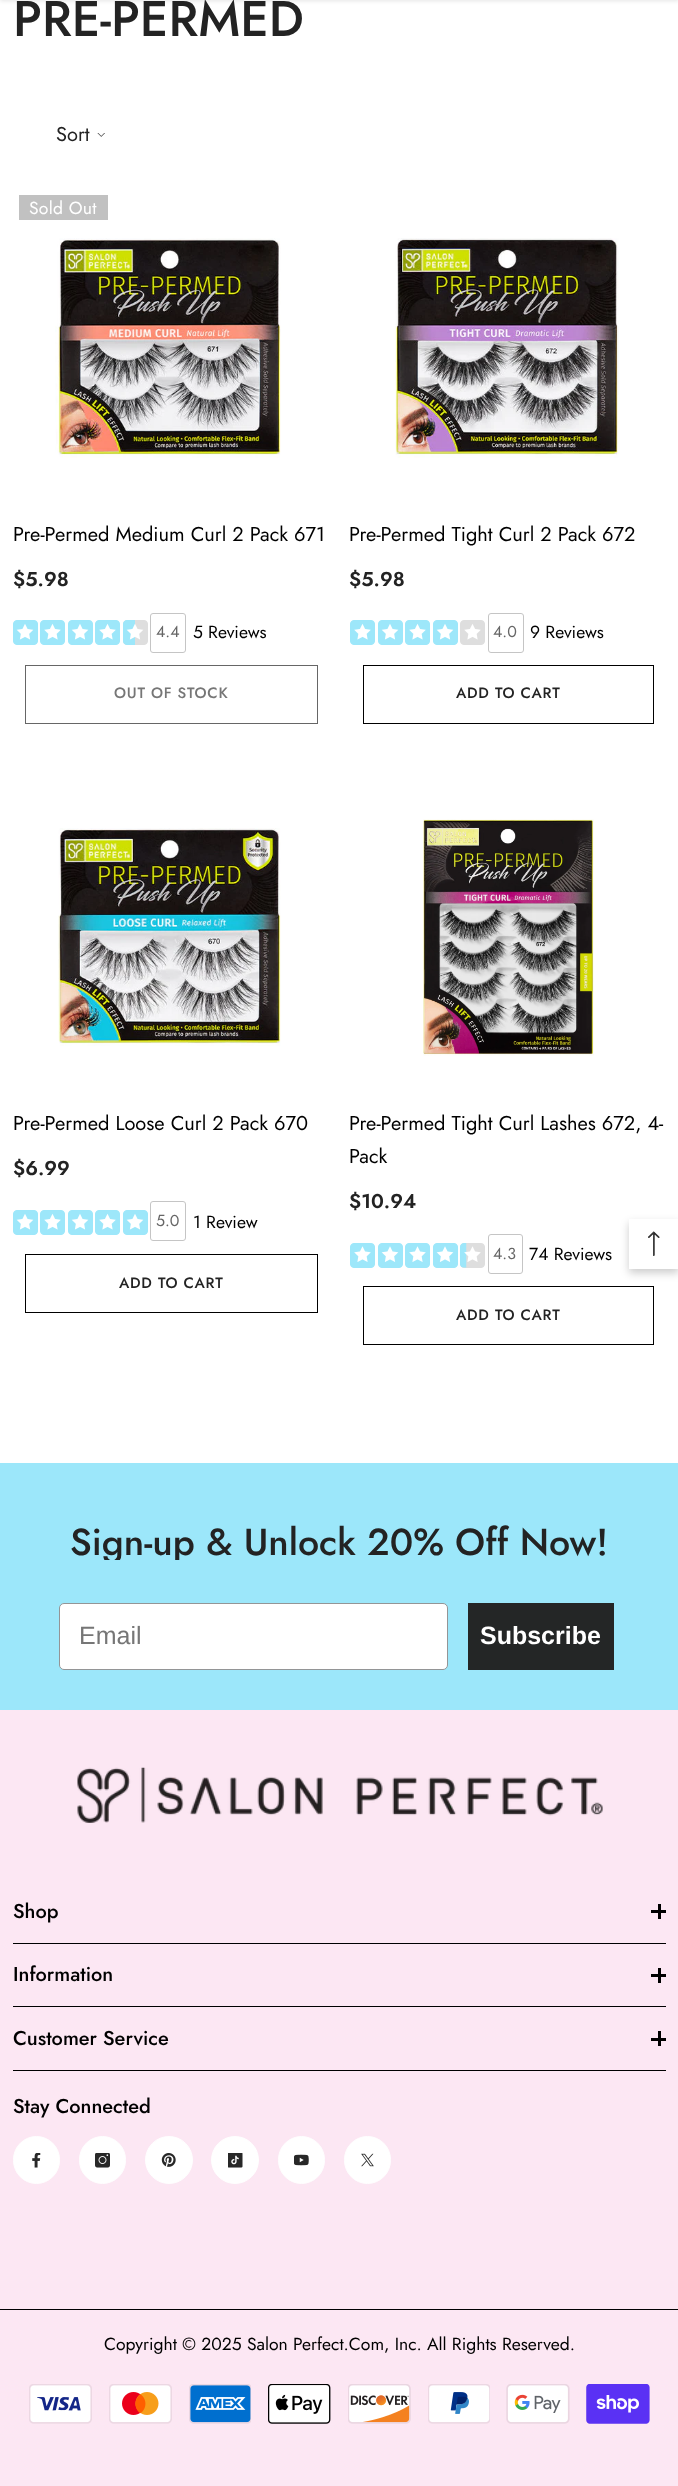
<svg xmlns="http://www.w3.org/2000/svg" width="678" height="2486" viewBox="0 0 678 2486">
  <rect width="100%" height="100%" fill="rgb(255,255,255)"/>
  <rect x="0" y="-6" width="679" height="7" fill="rgba(0,0,0,0.1)" filter="blur(2px)"/>
  <text x="13" y="36" font-family="Jost" font-size="50" font-weight="500" fill="rgb(35,35,35)">PRE-PERMED</text>
  <text x="56" y="141" font-family="Jost" font-size="20" fill="rgb(35,35,35)">Sort</text>
  <image x="97" y="133" width="8" height="4" href="pic1.png"/>
  <rect x="19" y="195" width="89" height="25" fill="rgb(193,193,193)"/>
  <text x="29" y="214" font-family="Jost" font-size="17.5" letter-spacing="0.25" fill="rgb(255,255,255)">Sold Out</text>
  <image x="55" y="238" width="226" height="220" href="pic2.png"/>
  <text x="13" y="541" font-family="Jost" font-size="20" fill="rgb(0,0,0)">Pre-Permed Medium Curl 2 Pack 671</text>
  <text x="13" y="586" font-family="Jost" font-size="20" font-weight="600" fill="rgb(35,35,35)">$5.98</text>
  <image x="13" y="620" width="25" height="25" href="pic3.png"/>
  <image x="40" y="620" width="25" height="25" href="pic4.png"/>
  <image x="68" y="620" width="25" height="25" href="pic3.png"/>
  <image x="95" y="620" width="25" height="25" href="pic4.png"/>
  <image x="123" y="620" width="25" height="25" href="pic5.png"/>
  <rect x="150.5" y="613.5" width="35" height="39" rx="2.5" fill="none" stroke="rgb(197,197,197)"/>
  <text x="156" y="637" font-family="Jost" font-size="16" fill="rgb(102,102,102)">4.4</text>
  <text x="193" y="638" font-family="Jost" font-size="17.5" fill="rgb(0,0,0)">5 Reviews</text>
  <rect x="25.5" y="665.5" width="292" height="58" fill="none" stroke="rgb(102,102,102)"/>
  <text x="114" y="698" font-family="Jost" font-size="15" font-weight="500" letter-spacing="0.75" fill="rgb(118,118,118)">OUT OF STOCK</text>
  <image x="395" y="238" width="224" height="220" href="pic6.png"/>
  <text x="349" y="541" font-family="Jost" font-size="20" fill="rgb(0,0,0)">Pre-Permed Tight Curl 2 Pack 672</text>
  <text x="349" y="586" font-family="Jost" font-size="20" font-weight="600" fill="rgb(35,35,35)">$5.98</text>
  <image x="350" y="620" width="25" height="25" href="pic4.png"/>
  <image x="378" y="620" width="25" height="25" href="pic3.png"/>
  <image x="405" y="620" width="25" height="25" href="pic4.png"/>
  <image x="433" y="620" width="25" height="25" href="pic3.png"/>
  <image x="460" y="620" width="25" height="25" href="pic7.png"/>
  <rect x="488.5" y="613.5" width="35" height="39" rx="2.5" fill="none" stroke="rgb(197,197,197)"/>
  <text x="493" y="637" font-family="Jost" font-size="16" fill="rgb(102,102,102)">4.0</text>
  <text x="530" y="638" font-family="Jost" font-size="17.5" fill="rgb(0,0,0)">9 Reviews</text>
  <rect x="363.5" y="665.5" width="290" height="58" fill="none" stroke="rgb(0,0,0)"/>
  <text x="456" y="698" font-family="Jost" font-size="15" font-weight="500" letter-spacing="0.75" fill="rgb(35,35,35)">ADD TO CART</text>
  <image x="58" y="828" width="223" height="218" href="pic8.png"/>
  <text x="13" y="1130" font-family="Jost" font-size="20" fill="rgb(0,0,0)">Pre-Permed Loose Curl 2 Pack 670</text>
  <text x="13" y="1175" font-family="Jost" font-size="20" font-weight="600" fill="rgb(35,35,35)">$6.99</text>
  <image x="13" y="1210" width="25" height="25" href="pic3.png"/>
  <image x="40" y="1210" width="25" height="25" href="pic4.png"/>
  <image x="68" y="1210" width="25" height="25" href="pic3.png"/>
  <image x="95" y="1210" width="25" height="25" href="pic4.png"/>
  <image x="123" y="1210" width="25" height="25" href="pic3.png"/>
  <rect x="150.5" y="1201.5" width="35" height="39" rx="2.5" fill="none" stroke="rgb(197,197,197)"/>
  <text x="156" y="1226" font-family="Jost" font-size="16" fill="rgb(102,102,102)">5.0</text>
  <text x="193" y="1228" font-family="Jost" font-size="17.5" fill="rgb(0,0,0)">1 Review</text>
  <rect x="25.5" y="1254.5" width="292" height="58" fill="none" stroke="rgb(0,0,0)"/>
  <text x="119" y="1288" font-family="Jost" font-size="15" font-weight="500" letter-spacing="0.75" fill="rgb(35,35,35)">ADD TO CART</text>
  <image x="423" y="819" width="171" height="237" href="pic9.png"/>
  <g font-family="Jost" font-size="20" fill="rgb(0,0,0)">
    <text>
      <tspan x="349" y="1130">Pre-Permed Tight Curl Lashes 672, 4-</tspan>
      <tspan x="349" y="1163">Pack</tspan>
    </text>
  </g>
  <text x="349" y="1208" font-family="Jost" font-size="20" font-weight="600" fill="rgb(35,35,35)">$10.94</text>
  <image x="350" y="1243" width="25" height="25" href="pic10.png"/>
  <image x="378" y="1243" width="25" height="25" href="pic11.png"/>
  <image x="405" y="1243" width="25" height="25" href="pic10.png"/>
  <image x="433" y="1243" width="25" height="25" href="pic11.png"/>
  <image x="460" y="1243" width="25" height="25" href="pic12.png"/>
  <rect x="488.5" y="1234.5" width="34" height="39" rx="2.5" fill="none" stroke="rgb(197,197,197)"/>
  <text x="493" y="1259" font-family="Jost" font-size="16" fill="rgb(102,102,102)">4.3</text>
  <text x="529" y="1260" font-family="Jost" font-size="17.5" fill="rgb(0,0,0)">74 Reviews</text>
  <rect x="363.5" y="1286.5" width="290" height="58" fill="none" stroke="rgb(0,0,0)"/>
  <text x="456" y="1320" font-family="Jost" font-size="15" font-weight="500" letter-spacing="0.75" fill="rgb(35,35,35)">ADD TO CART</text>
  <rect x="0" y="1463" width="678" height="247" fill="rgb(156,231,250)"/>
  <text x="70" y="1555" font-family="Jost" font-size="37.5" font-weight="500" fill="rgb(35,35,35)">Sign-up &amp; Unlock 20% Off Now!</text>
  <rect x="59" y="1560" width="562" height="150" rx="2.5" fill="rgb(156,231,250)"/>
  <rect x="59.5" y="1603.5" width="388" height="66" rx="4.5" fill="rgb(255,255,255)" stroke="rgb(148,149,150)"/>
  <text x="79" y="1644" font-family="Liberation Sans" font-size="25" fill="rgb(118,118,118)">Email</text>
  <rect x="468" y="1603" width="146" height="67" fill="rgb(36,38,38)"/>
  <text x="480" y="1644" font-family="Liberation Sans" font-size="25" font-weight="bold" fill="rgb(255,255,255)">Subscribe</text>
  <rect x="0" y="1710" width="678" height="599" fill="rgb(252,231,243)"/>
  <image x="77" y="1767" width="526" height="56" href="pic13.png"/>
  <rect x="13" y="1943" width="653" height="1" fill="rgb(0,0,0)"/>
  <text x="13" y="1918" font-family="Jost" font-size="20" font-weight="500" fill="rgb(0,0,0)">Shop</text>
  <rect x="658" y="1904" width="3" height="15" fill="rgb(0,0,0)"/>
  <rect x="651" y="1910" width="15" height="3" fill="rgb(0,0,0)"/>
  <rect x="13" y="2006" width="653" height="1" fill="rgb(0,0,0)"/>
  <text x="13" y="1981" font-family="Jost" font-size="20" font-weight="500" fill="rgb(0,0,0)">Information</text>
  <rect x="658" y="1968" width="3" height="15" fill="rgb(0,0,0)"/>
  <rect x="651" y="1974" width="15" height="3" fill="rgb(0,0,0)"/>
  <rect x="13" y="2070" width="653" height="1" fill="rgb(0,0,0)"/>
  <text x="13" y="2045" font-family="Jost" font-size="20" font-weight="500" fill="rgb(0,0,0)">Customer Service</text>
  <rect x="658" y="2031" width="3" height="15" fill="rgb(0,0,0)"/>
  <rect x="651" y="2038" width="15" height="3" fill="rgb(0,0,0)"/>
  <text x="13" y="2113" font-family="Jost" font-size="20" font-weight="500" fill="rgb(0,0,0)">Stay Connected</text>
  <rect x="13.5" y="2136.5" width="46" height="47" rx="23" fill="rgb(255,255,255)" stroke="rgb(255,255,255)"/>
  <image x="32" y="2153" width="9" height="15" href="pic14.png"/>
  <rect x="79.5" y="2136.5" width="46" height="47" rx="23" fill="rgb(255,255,255)" stroke="rgb(255,255,255)"/>
  <image x="95" y="2153" width="15" height="15" href="pic15.png"/>
  <circle cx="169" cy="2160" r="23.5" fill="rgb(255,255,255)" stroke="rgb(255,255,255)"/>
  <image x="161" y="2153" width="15" height="14" href="pic16.png"/>
  <circle cx="235" cy="2160" r="23.5" fill="rgb(255,255,255)" stroke="rgb(255,255,255)"/>
  <image x="228" y="2153" width="15" height="15" href="pic17.png"/>
  <rect x="278.5" y="2136.5" width="46" height="47" rx="23" fill="rgb(255,255,255)" stroke="rgb(255,255,255)"/>
  <image x="294" y="2154" width="15" height="12" href="pic18.png"/>
  <rect x="344.5" y="2136.5" width="46" height="47" rx="23" fill="rgb(255,255,255)" stroke="rgb(255,255,255)"/>
  <image x="361" y="2153" width="13" height="14" href="pic19.png"/>
  <rect x="0" y="2310" width="678" height="176" fill="rgb(252,231,243)"/>
  <rect x="0" y="2309" width="678" height="1" fill="rgb(0,0,0)"/>
  <text x="104" y="2350" font-family="Jost" font-size="17.5" fill="rgb(0,0,0)">Copyright © 2025 Salon Perfect.Com, Inc. All Rights Reserved.</text>
  <image x="29" y="2384" width="63" height="40" href="pic20.png"/>
  <image x="109" y="2384" width="63" height="40" href="pic21.png"/>
  <image x="189" y="2384" width="62" height="40" href="pic22.png"/>
  <image x="268" y="2384" width="63" height="40" href="pic23.png"/>
  <image x="348" y="2384" width="63" height="40" href="pic24.png"/>
  <image x="428" y="2384" width="62" height="40" href="pic25.png"/>
  <image x="506" y="2384" width="64" height="40" href="pic26.png"/>
  <image x="586" y="2384" width="64" height="40" href="pic27.png"/>
  <rect x="629" y="1223" width="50" height="50" fill="rgba(0,0,0,0.2)" filter="blur(4.5px)"/>
  <rect x="629" y="1219" width="49" height="50" fill="rgb(255,255,255)"/>
  <image x="648" y="1231" width="12" height="25" href="pic28.png"/>
</svg>
